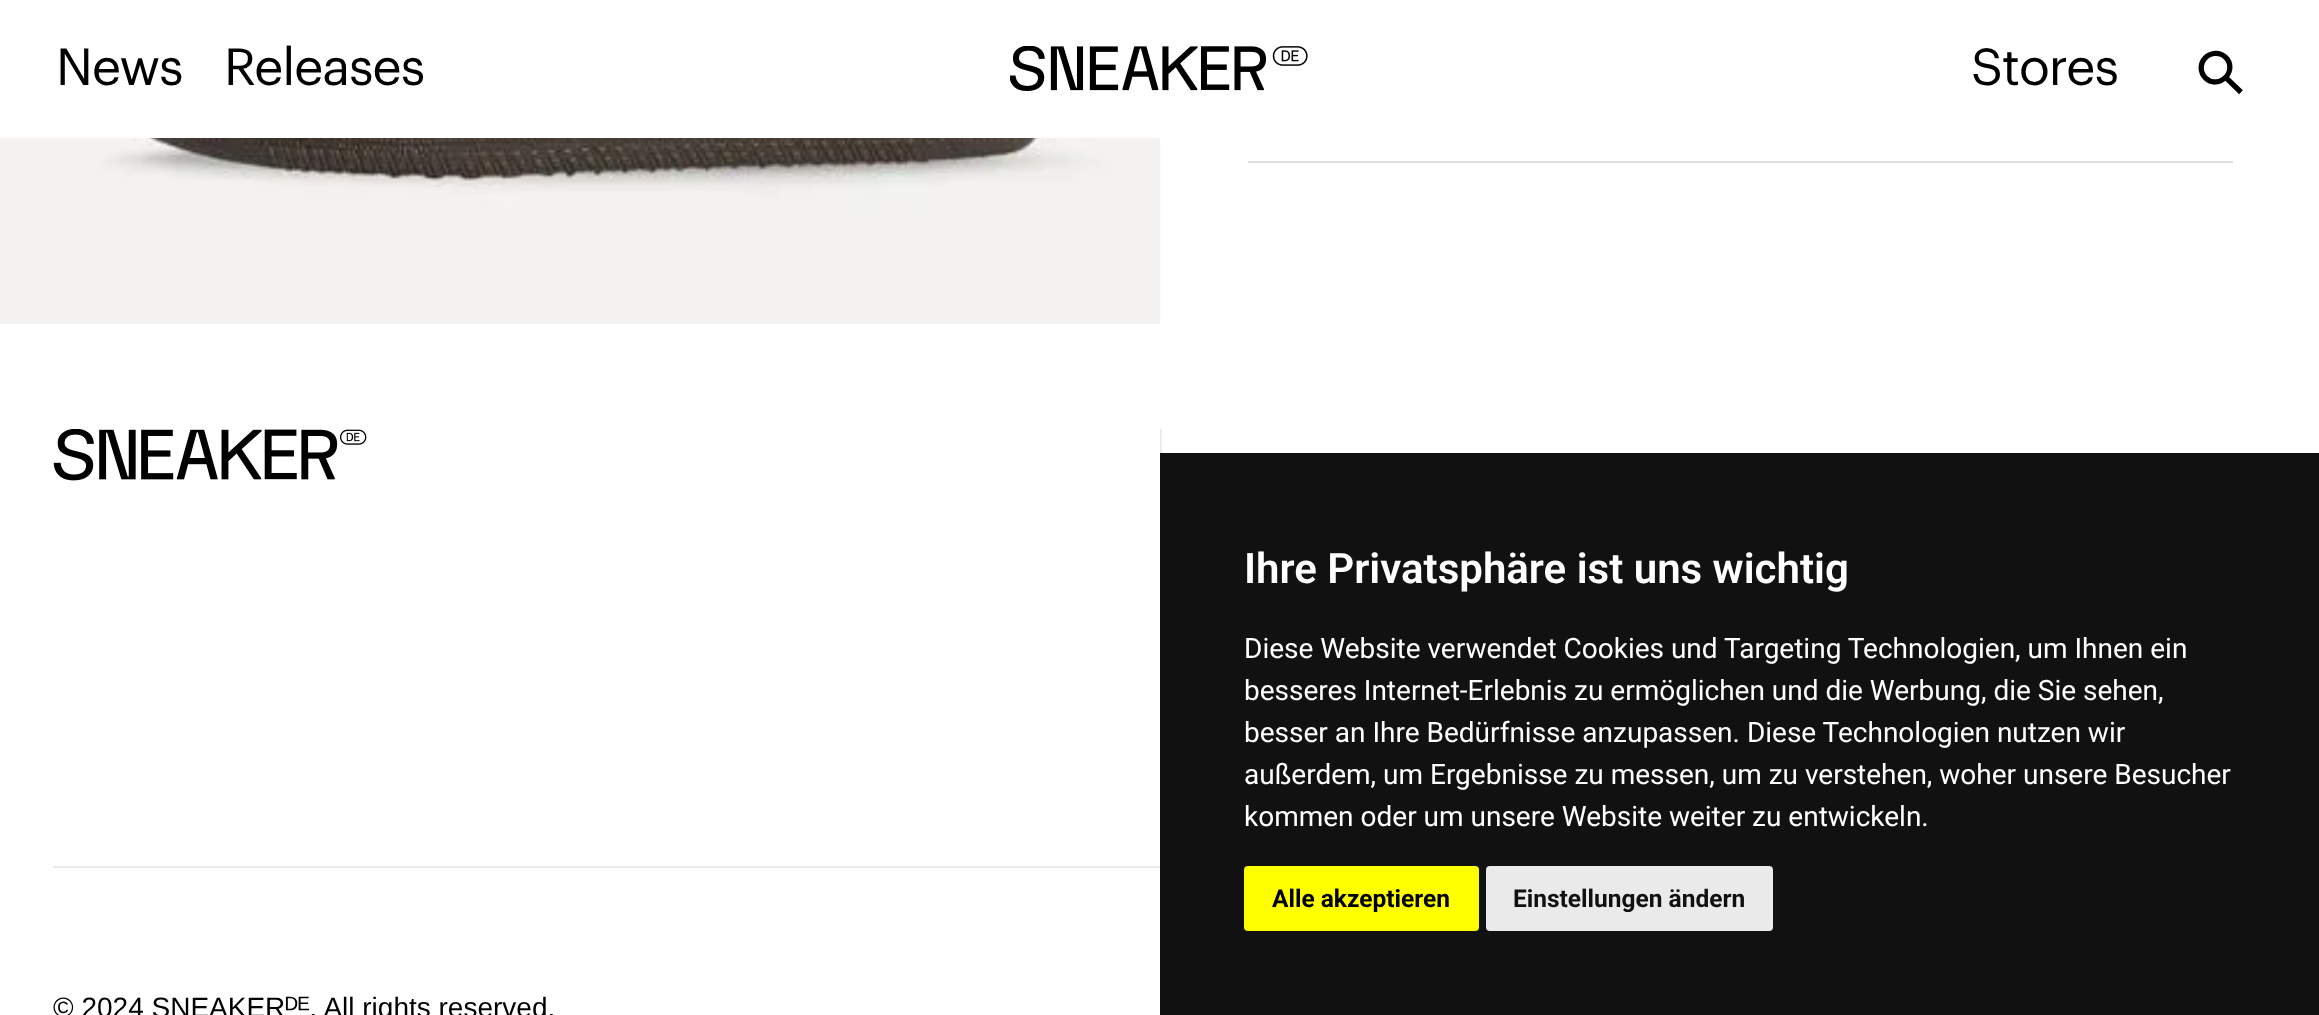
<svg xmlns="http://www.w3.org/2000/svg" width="2319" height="1015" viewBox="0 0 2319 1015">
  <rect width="100%" height="100%" fill="rgb(255,255,255)"/>
  <g font-family="Graphik" font-size="51" letter-spacing="-1" fill="rgb(0,0,0)">
    <text x="56" y="85">News</text>
    <text x="224" y="85">Releases</text>
  </g>
  <image x="1010" y="46" width="298" height="45" href="pic1.png"/>
  <text x="1971" y="85" font-family="Graphik" font-size="51" letter-spacing="-1" fill="rgb(0,0,0)">Stores</text>
  <text x="2220" y="103" transform="rotate(-46 2220 103)" font-family="DejaVu Sans" font-size="61" fill="rgb(0,0,0)">⚲</text>
  <image x="0" y="138" width="1161" height="186" href="pic2.png"/>
  <rect x="1248" y="161" width="985" height="2" fill="rgb(221,221,221)"/>
  <rect x="1160" y="453" width="1159" height="562" fill="rgb(17,17,17)"/>
  <text x="1244" y="583" font-family="Roboto" font-size="42" font-weight="600" fill="rgb(255,255,255)">Ihre Privatsphäre ist uns wichtig</text>
  <g font-family="Roboto" font-size="28" fill="rgb(255,255,255)">
    <text>
      <tspan x="1244" y="658">Diese Website verwendet Cookies und Targeting Technologien, um Ihnen ein</tspan>
      <tspan x="1244" y="700">besseres Internet-Erlebnis zu ermöglichen und die Werbung, die Sie sehen,</tspan>
      <tspan x="1244" y="742">besser an Ihre Bedürfnisse anzupassen. Diese Technologien nutzen wir</tspan>
      <tspan x="1244" y="784">außerdem, um Ergebnisse zu messen, um zu verstehen, woher unsere Besucher</tspan>
      <tspan x="1244" y="826">kommen oder um unsere Website weiter zu entwickeln.</tspan>
    </text>
  </g>
  <rect x="1244" y="866" width="235" height="65" rx="4" fill="rgb(255,255,0)"/>
  <text x="1272" y="907" font-family="Roboto" font-size="24.5" font-weight="bold" fill="rgb(0,0,0)">Alle akzeptieren</text>
  <rect x="1486" y="866" width="287" height="65" rx="4" fill="rgb(234,234,234)"/>
  <text x="1513" y="907" font-family="Roboto" font-size="24.5" font-weight="bold" fill="rgb(17,17,17)">Einstellungen ändern</text>
  <image x="53" y="429" width="314" height="52" href="pic3.png"/>
  <rect x="1160" y="429" width="2" height="24" fill="rgb(234,235,237)"/>
  <rect x="53" y="866" width="1107" height="2" fill="rgb(234,235,237)"/>
  <text x="53" y="1017" font-family="Liberation Sans" font-size="28" fill="rgb(0,0,0)">© 2024 SNEAKERᴰᴱ, All rights reserved.</text>
</svg>
